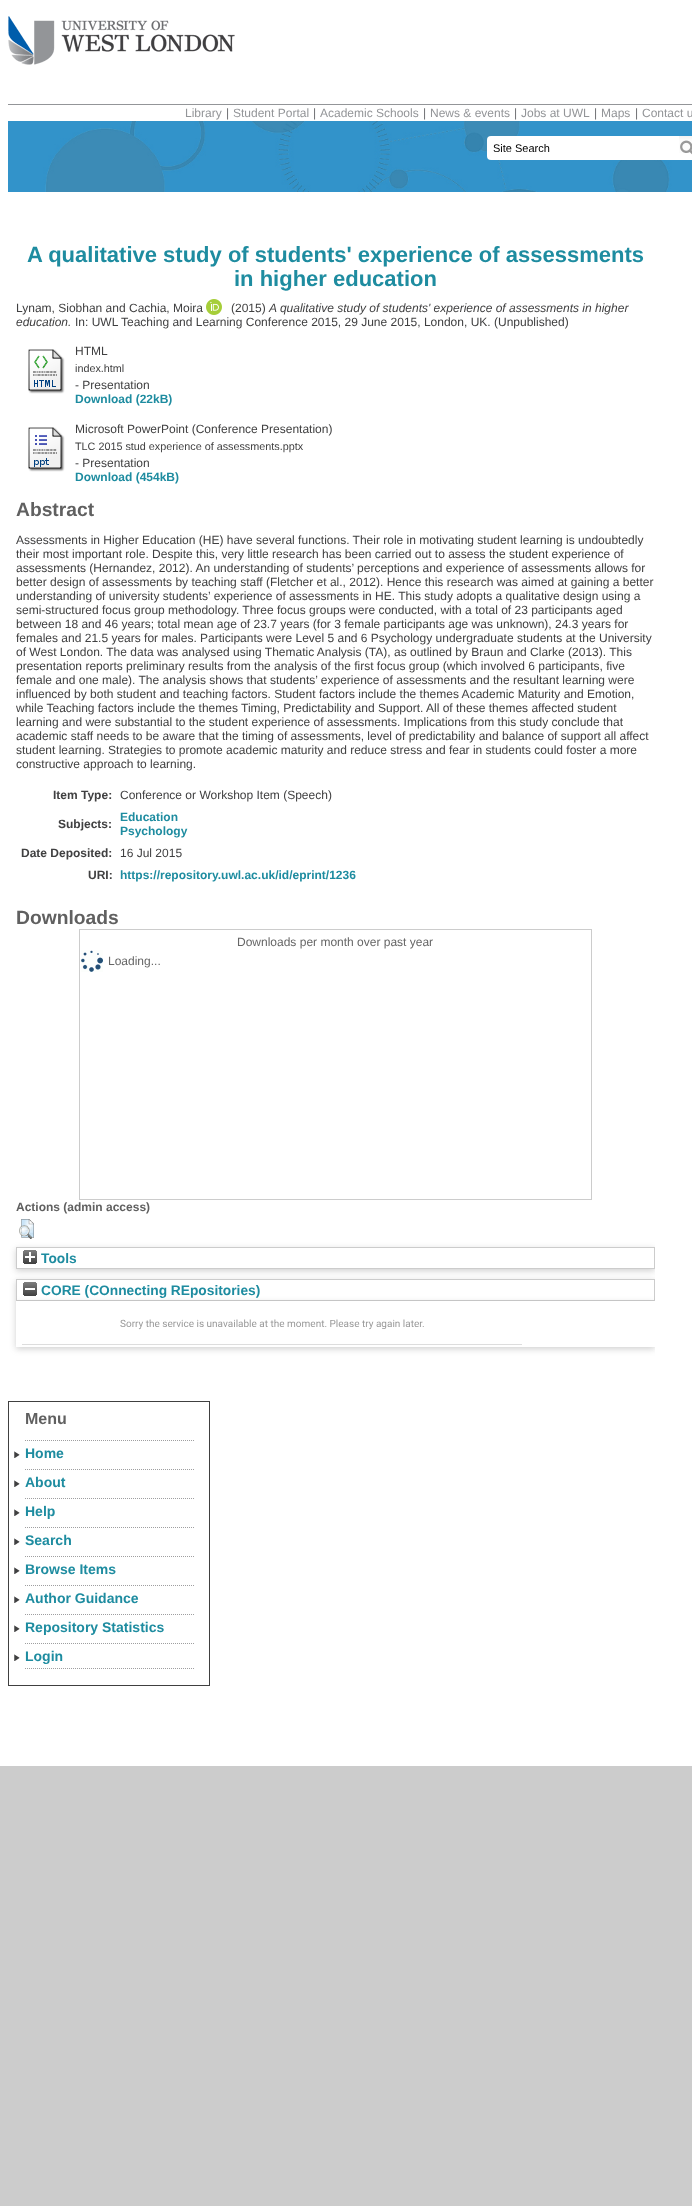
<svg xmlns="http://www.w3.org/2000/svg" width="692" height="2206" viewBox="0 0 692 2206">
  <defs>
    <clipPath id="clip1"><rect x="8" y="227" width="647" height="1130"/></clipPath>
    <clipPath id="clip2"><path d="M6 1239H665V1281H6ZM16 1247H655V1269H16Z" clip-rule="evenodd"/></clipPath>
    <clipPath id="clip3"><path d="M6 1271H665V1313H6ZM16 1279H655V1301H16Z" clip-rule="evenodd"/></clipPath>
  </defs>
  <rect width="100%" height="100%" fill="rgb(204,204,204)"/>
  <rect x="0" y="0" width="692" height="1766" fill="rgb(255,255,255)"/>
  <rect x="8" y="104" width="684" height="1" fill="rgb(147,149,152)"/>
  <image x="8" y="16" width="227" height="49" href="pic1.png"/>
  <text x="185" y="117" font-family="Liberation Sans" font-size="12" fill="rgb(147,149,152)">Library</text>
  <text x="226" y="117" font-family="Liberation Sans" font-size="12" fill="rgb(109,110,113)">|</text>
  <text x="233" y="117" font-family="Liberation Sans" font-size="12" fill="rgb(147,149,152)">Student Portal</text>
  <text x="313" y="117" font-family="Liberation Sans" font-size="12" fill="rgb(109,110,113)">|</text>
  <text x="320" y="117" font-family="Liberation Sans" font-size="12" fill="rgb(147,149,152)">Academic Schools</text>
  <text x="423" y="117" font-family="Liberation Sans" font-size="12" fill="rgb(109,110,113)">|</text>
  <text x="430" y="117" font-family="Liberation Sans" font-size="12" fill="rgb(147,149,152)">News &amp; events</text>
  <text x="514" y="117" font-family="Liberation Sans" font-size="12" fill="rgb(109,110,113)">|</text>
  <text x="521" y="117" font-family="Liberation Sans" font-size="12" fill="rgb(147,149,152)">Jobs at UWL</text>
  <text x="594" y="117" font-family="Liberation Sans" font-size="12" fill="rgb(109,110,113)">|</text>
  <text x="601" y="117" font-family="Liberation Sans" font-size="12" fill="rgb(147,149,152)">Maps</text>
  <text x="635" y="117" font-family="Liberation Sans" font-size="12" fill="rgb(109,110,113)">|</text>
  <text x="642" y="117" font-family="Liberation Sans" font-size="12" fill="rgb(147,149,152)">Contact u</text>
  <image x="8" y="121" width="684" height="71" href="pic3.png"/>
  <rect x="487" y="136" width="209" height="24" rx="4" fill="rgb(255,255,255)"/>
  <image x="679" y="136" width="13" height="19" href="pic2.png"/>
  <text x="493" y="152" font-family="Liberation Sans" font-size="11" fill="rgb(0,0,0)">Site Search</text>
  <g font-family="Liberation Sans" font-size="22" font-weight="bold" fill="rgb(30,140,160)">
    <text x="27" y="262">A qualitative study of students' experience of assessments</text>
    <text x="234" y="286">in higher education</text>
  </g>
  <text x="16" y="312" font-family="Liberation Sans" font-size="12" fill="rgb(64,64,65)">Lynam, Siobhan and Cachia, Moira</text>
  <image x="206" y="299" width="16" height="16" href="pic4.png"/>
  <text x="231" y="312" font-family="Liberation Sans" font-size="12" fill="rgb(64,64,65)">(2015)</text>
  <g font-family="Liberation Sans" font-size="12" font-style="italic" fill="rgb(64,64,65)">
    <text x="269" y="312">A qualitative study of students' experience of assessments in higher</text>
    <text x="16" y="326">education.</text>
  </g>
  <text x="75" y="326" font-family="Liberation Sans" font-size="12" fill="rgb(64,64,65)">In: UWL Teaching and Learning Conference 2015, 29 June 2015, London, UK. (Unpublished)</text>
  <image x="28" y="349" width="37" height="45" href="pic5.png"/>
  <text x="75" y="355" font-family="Liberation Sans" font-size="12" fill="rgb(64,64,65)">HTML</text>
  <text x="75" y="372" font-family="Liberation Sans" font-size="10.8" fill="rgb(64,64,65)">index.html</text>
  <text x="75" y="389" font-family="Liberation Sans" font-size="12" fill="rgb(64,64,65)">- Presentation</text>
  <text x="75" y="403" font-family="Liberation Sans" font-size="12" font-weight="bold" fill="rgb(30,140,160)">Download (22kB)</text>
  <image x="28" y="427" width="37" height="45" href="pic6.png"/>
  <text x="75" y="433" font-family="Liberation Sans" font-size="12" fill="rgb(64,64,65)">Microsoft PowerPoint (Conference Presentation)</text>
  <text x="75" y="450" font-family="Liberation Sans" font-size="10.8" fill="rgb(64,64,65)">TLC 2015 stud experience of assessments.pptx</text>
  <text x="75" y="467" font-family="Liberation Sans" font-size="12" fill="rgb(64,64,65)">- Presentation</text>
  <text x="75" y="481" font-family="Liberation Sans" font-size="12" font-weight="bold" fill="rgb(30,140,160)">Download (454kB)</text>
  <text x="16" y="516" font-family="Liberation Sans" font-size="19.25" font-weight="bold" fill="rgb(96,96,96)">Abstract</text>
  <g font-family="Liberation Sans" font-size="12" fill="rgb(64,64,65)">
    <text>
      <tspan x="16" y="544">Assessments in Higher Education (HE) have several functions. Their role in motivating student learning is undoubtedly</tspan>
      <tspan x="16" y="558">their most important role. Despite this, very little research has been carried out to assess the student experience of</tspan>
      <tspan x="16" y="572">assessments (Hernandez, 2012). An understanding of students’ perceptions and experience of assessments allows for</tspan>
      <tspan x="16" y="586">better design of assessments by teaching staff (Fletcher et al., 2012). Hence this research was aimed at gaining a better</tspan>
      <tspan x="16" y="600">understanding of university students’ experience of assessments in HE. This study adopts a qualitative design using a</tspan>
      <tspan x="16" y="614">semi-structured focus group methodology. Three focus groups were conducted, with a total of 23 participants aged</tspan>
      <tspan x="16" y="628">between 18 and 46 years; total mean age of 23.7 years (for 3 female participants age was unknown), 24.3 years for</tspan>
      <tspan x="16" y="642">females and 21.5 years for males. Participants were Level 5 and 6 Psychology undergraduate students at the University</tspan>
      <tspan x="16" y="656">of West London. The data was analysed using Thematic Analysis (TA), as outlined by Braun and Clarke (2013). This</tspan>
      <tspan x="16" y="670">presentation reports preliminary results from the analysis of the first focus group (which involved 6 participants, five</tspan>
      <tspan x="16" y="684">female and one male). The analysis shows that students’ experience of assessments and the resultant learning were</tspan>
      <tspan x="16" y="698">influenced by both student and teaching factors. Student factors include the themes Academic Maturity and Emotion,</tspan>
      <tspan x="16" y="712">while Teaching factors include the themes Timing, Predictability and Support. All of these themes affected student</tspan>
      <tspan x="16" y="726">learning and were substantial to the student experience of assessments. Implications from this study conclude that</tspan>
      <tspan x="16" y="740">academic staff needs to be aware that the timing of assessments, level of predictability and balance of support all affect</tspan>
      <tspan x="16" y="754">student learning. Strategies to promote academic maturity and reduce stress and fear in students could foster a more</tspan>
      <tspan x="16" y="768">constructive approach to learning.</tspan>
    </text>
  </g>
  <text x="53" y="799" font-family="Liberation Sans" font-size="12" font-weight="bold" fill="rgb(64,64,65)">Item Type:</text>
  <text x="120" y="799" font-family="Liberation Sans" font-size="12" fill="rgb(64,64,65)">Conference or Workshop Item (Speech)</text>
  <text x="58" y="828" font-family="Liberation Sans" font-size="12" font-weight="bold" fill="rgb(64,64,65)">Subjects:</text>
  <g font-family="Liberation Sans" font-size="12" font-weight="bold" fill="rgb(30,140,160)">
    <text>
      <tspan x="120" y="821">Education</tspan>
      <tspan x="120" y="835">Psychology</tspan>
    </text>
  </g>
  <text x="21" y="857" font-family="Liberation Sans" font-size="12" font-weight="bold" fill="rgb(64,64,65)">Date Deposited:</text>
  <text x="120" y="857" font-family="Liberation Sans" font-size="12" fill="rgb(64,64,65)">16 Jul 2015</text>
  <text x="88" y="879" font-family="Liberation Sans" font-size="12" font-weight="bold" fill="rgb(64,64,65)">URI:</text>
  <text x="120" y="879" font-family="Liberation Sans" font-size="12" font-weight="bold" fill="rgb(30,140,160)">https://repository.uwl.ac.uk/id/eprint/1236</text>
  <text x="16" y="924" font-family="Liberation Sans" font-size="19.25" font-weight="bold" fill="rgb(96,96,96)">Downloads</text>
  <rect x="79.5" y="929.5" width="512" height="270" fill="none" stroke="rgb(204,204,204)"/>
  <text x="237" y="946" font-family="Liberation Sans" font-size="12" fill="rgb(102,102,102)">Downloads per month over past year</text>
  <image x="81" y="950" width="22" height="22" href="pic7.png"/>
  <text x="108" y="965" font-family="Liberation Sans" font-size="12" fill="rgb(102,102,102)">Loading...</text>
  <text x="16" y="1211" font-family="Liberation Sans" font-size="12" font-weight="bold" fill="rgb(96,96,96)">Actions (admin access)</text>
  <image x="19" y="1219" width="15" height="20" href="pic8.png"/>
  <g clip-path="url(#clip1)">
    <g clip-path="url(#clip2)">
      <rect x="16" y="1249" width="639" height="22" fill="rgba(100,100,100,0.3)" filter="blur(3px)"/>
    </g>
  </g>
  <rect x="16.5" y="1247.5" width="638" height="21" fill="none" stroke="rgb(204,204,204)"/>
  <image x="23" y="1250" width="14" height="14" href="pic9.png"/>
  <text x="41" y="1263" font-family="Liberation Sans" font-size="13.75" font-weight="bold" fill="rgb(30,140,160)">Tools</text>
  <g clip-path="url(#clip1)">
    <g clip-path="url(#clip3)">
      <rect x="16" y="1281" width="639" height="22" fill="rgba(100,100,100,0.3)" filter="blur(3px)"/>
    </g>
  </g>
  <rect x="16.5" y="1279.5" width="638" height="21" fill="none" stroke="rgb(204,204,204)"/>
  <g clip-path="url(#clip1)">
    <rect x="16" y="1303" width="639" height="46" fill="rgba(100,100,100,0.3)" filter="blur(3px)"/>
  </g>
  <image x="23" y="1282" width="14" height="14" href="pic10.png"/>
  <text x="41" y="1295" font-family="Liberation Sans" font-size="13.75" font-weight="bold" fill="rgb(30,140,160)">CORE (COnnecting REpositories)</text>
  <rect x="16" y="1301" width="639" height="46" fill="rgb(255,255,255)"/>
  <rect x="22" y="1344" width="500" height="1" fill="rgb(221,221,221)"/>
  <text x="120" y="1327" font-family="Roboto" font-size="10" fill="rgb(153,153,153)">Sorry the service is unavailable at the moment. Please try again later.</text>
  <rect x="8.5" y="1401.5" width="201" height="284" fill="none" stroke="rgb(64,64,64)"/>
  <text x="25" y="1424" font-family="Liberation Sans" font-size="16" font-weight="bold" fill="rgb(96,96,96)">Menu</text>
  <image x="14" y="1451" width="6" height="7" href="pic11.png"/>
  <path d="M25 1440.5H195" fill="none" stroke="rgb(159,159,160)" stroke-dasharray="1 1"/>
  <text x="25" y="1458" font-family="Liberation Sans" font-size="14" font-weight="bold" fill="rgb(30,140,160)">Home</text>
  <image x="14" y="1480" width="6" height="7" href="pic11.png"/>
  <path d="M25 1469.5H195" fill="none" stroke="rgb(159,159,160)" stroke-dasharray="1 1"/>
  <text x="25" y="1487" font-family="Liberation Sans" font-size="14" font-weight="bold" fill="rgb(30,140,160)">About</text>
  <image x="14" y="1509" width="6" height="7" href="pic11.png"/>
  <path d="M25 1498.5H195" fill="none" stroke="rgb(159,159,160)" stroke-dasharray="1 1"/>
  <text x="25" y="1516" font-family="Liberation Sans" font-size="14" font-weight="bold" fill="rgb(30,140,160)">Help</text>
  <image x="14" y="1538" width="6" height="7" href="pic11.png"/>
  <path d="M25 1527.5H195" fill="none" stroke="rgb(159,159,160)" stroke-dasharray="1 1"/>
  <text x="25" y="1545" font-family="Liberation Sans" font-size="14" font-weight="bold" fill="rgb(30,140,160)">Search</text>
  <image x="14" y="1567" width="6" height="7" href="pic11.png"/>
  <path d="M25 1556.5H195" fill="none" stroke="rgb(159,159,160)" stroke-dasharray="1 1"/>
  <text x="25" y="1574" font-family="Liberation Sans" font-size="14" font-weight="bold" fill="rgb(30,140,160)">Browse Items</text>
  <image x="14" y="1596" width="6" height="7" href="pic11.png"/>
  <path d="M25 1585.5H195" fill="none" stroke="rgb(159,159,160)" stroke-dasharray="1 1"/>
  <text x="25" y="1603" font-family="Liberation Sans" font-size="14" font-weight="bold" fill="rgb(30,140,160)">Author Guidance</text>
  <image x="14" y="1625" width="6" height="7" href="pic11.png"/>
  <path d="M25 1614.5H195" fill="none" stroke="rgb(159,159,160)" stroke-dasharray="1 1"/>
  <text x="25" y="1632" font-family="Liberation Sans" font-size="14" font-weight="bold" fill="rgb(30,140,160)">Repository Statistics</text>
  <image x="14" y="1654" width="6" height="7" href="pic11.png"/>
  <path d="M25 1643.5H195" fill="none" stroke="rgb(159,159,160)" stroke-dasharray="1 1"/>
  <path d="M25 1668.5H195" fill="none" stroke="rgb(159,159,160)" stroke-dasharray="1 1"/>
  <text x="25" y="1661" font-family="Liberation Sans" font-size="14" font-weight="bold" fill="rgb(30,140,160)">Login</text>
</svg>
